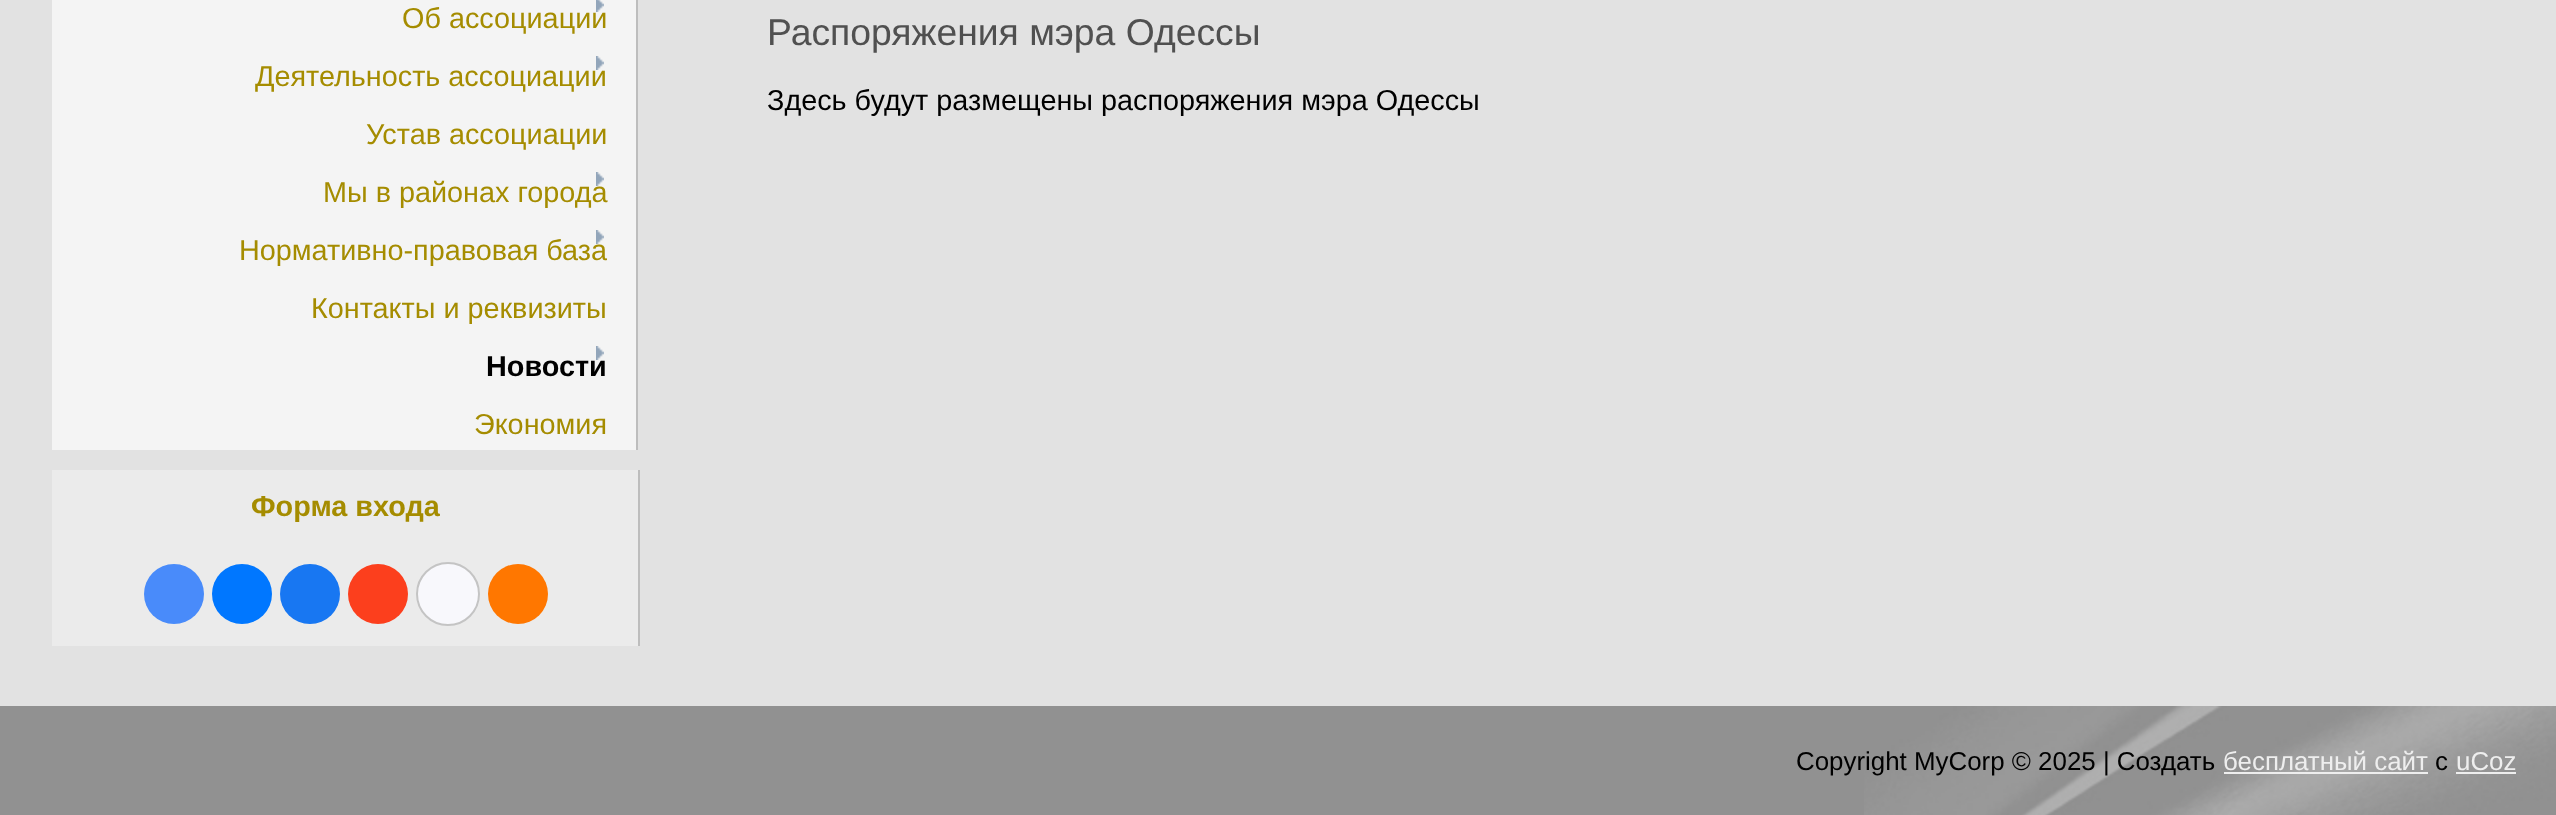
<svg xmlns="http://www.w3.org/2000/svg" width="2556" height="815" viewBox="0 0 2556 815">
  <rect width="100%" height="100%" fill="rgb(226,226,226)"/>
  <rect x="52" y="0" width="584" height="450" fill="rgb(244,244,244)"/>
  <rect x="636" y="0" width="2" height="450" fill="rgb(189,189,189)"/>
  <text x="402" y="28" font-family="Liberation Sans" font-size="28.8" fill="rgb(165,140,0)">Об ассоциации</text>
  <image x="596" y="0" width="8" height="12" href="pic1.png"/>
  <text x="255" y="86" font-family="Liberation Sans" font-size="28.8" fill="rgb(165,140,0)">Деятельность ассоциации</text>
  <image x="596" y="56" width="8" height="14" href="pic2.png"/>
  <g font-family="Liberation Sans" font-size="28.8" fill="rgb(165,140,0)">
    <text x="366" y="144">Устав ассоциации</text>
    <text x="323" y="202">Мы в районах города</text>
  </g>
  <image x="596" y="172" width="8" height="14" href="pic2.png"/>
  <text x="239" y="260" font-family="Liberation Sans" font-size="28.8" fill="rgb(165,140,0)">Нормативно-правовая база</text>
  <image x="596" y="230" width="8" height="14" href="pic2.png"/>
  <text x="311" y="318" font-family="Liberation Sans" font-size="28.8" fill="rgb(165,140,0)">Контакты и реквизиты</text>
  <text x="486" y="376" font-family="Liberation Sans" font-size="28.8" font-weight="bold" fill="rgb(0,0,0)">Новости</text>
  <image x="596" y="346" width="8" height="14" href="pic2.png"/>
  <text x="474" y="434" font-family="Liberation Sans" font-size="28.8" fill="rgb(165,140,0)">Экономия</text>
  <rect x="52" y="470" width="586" height="176" fill="rgb(235,235,235)"/>
  <rect x="638" y="470" width="2" height="176" fill="rgb(189,189,189)"/>
  <text x="251" y="516" font-family="Liberation Sans" font-size="28.8" font-weight="bold" fill="rgb(165,140,0)">Форма входа</text>
  <circle cx="174" cy="594" r="30" fill="rgb(73,139,250)"/>
  <circle cx="242" cy="594" r="30" fill="rgb(0,119,255)"/>
  <circle cx="310" cy="594" r="30" fill="rgb(24,119,242)"/>
  <circle cx="378" cy="594" r="30" fill="rgb(252,63,29)"/>
  <circle cx="448" cy="594" r="31" fill="rgb(248,248,252)" stroke="rgb(196,196,196)" stroke-width="2"/>
  <circle cx="518" cy="594" r="30" fill="rgb(255,119,0)"/>
  <text x="767" y="45" font-family="Liberation Sans" font-size="37.3" fill="rgb(80,80,80)">Распоряжения мэра Одессы</text>
  <text x="767" y="110" font-family="Liberation Sans" font-size="28.8" fill="rgb(0,0,0)">Здесь будут размещены распоряжения мэра Одессы</text>
  <rect x="0" y="706" width="1864" height="109" fill="rgb(145,145,145)"/>
  <image x="1864" y="706" width="692" height="109" href="pic3.png"/>
  <text x="1796" y="770" font-family="Liberation Sans" font-size="25.9" fill="rgb(0,0,0)">Copyright MyCorp © 2025 | Создать</text>
  <text x="2223" y="770" font-family="Liberation Sans" font-size="25.9" fill="rgb(238,238,238)">бесплатный сайт</text>
  <rect x="2224" y="772" width="204" height="2" fill="rgb(238,238,238)"/>
  <text x="2435" y="770" font-family="Liberation Sans" font-size="25.9" fill="rgb(0,0,0)">с</text>
  <text x="2456" y="770" font-family="Liberation Sans" font-size="25.9" fill="rgb(238,238,238)">uCoz</text>
  <rect x="2456" y="772" width="60" height="2" fill="rgb(238,238,238)"/>
</svg>
